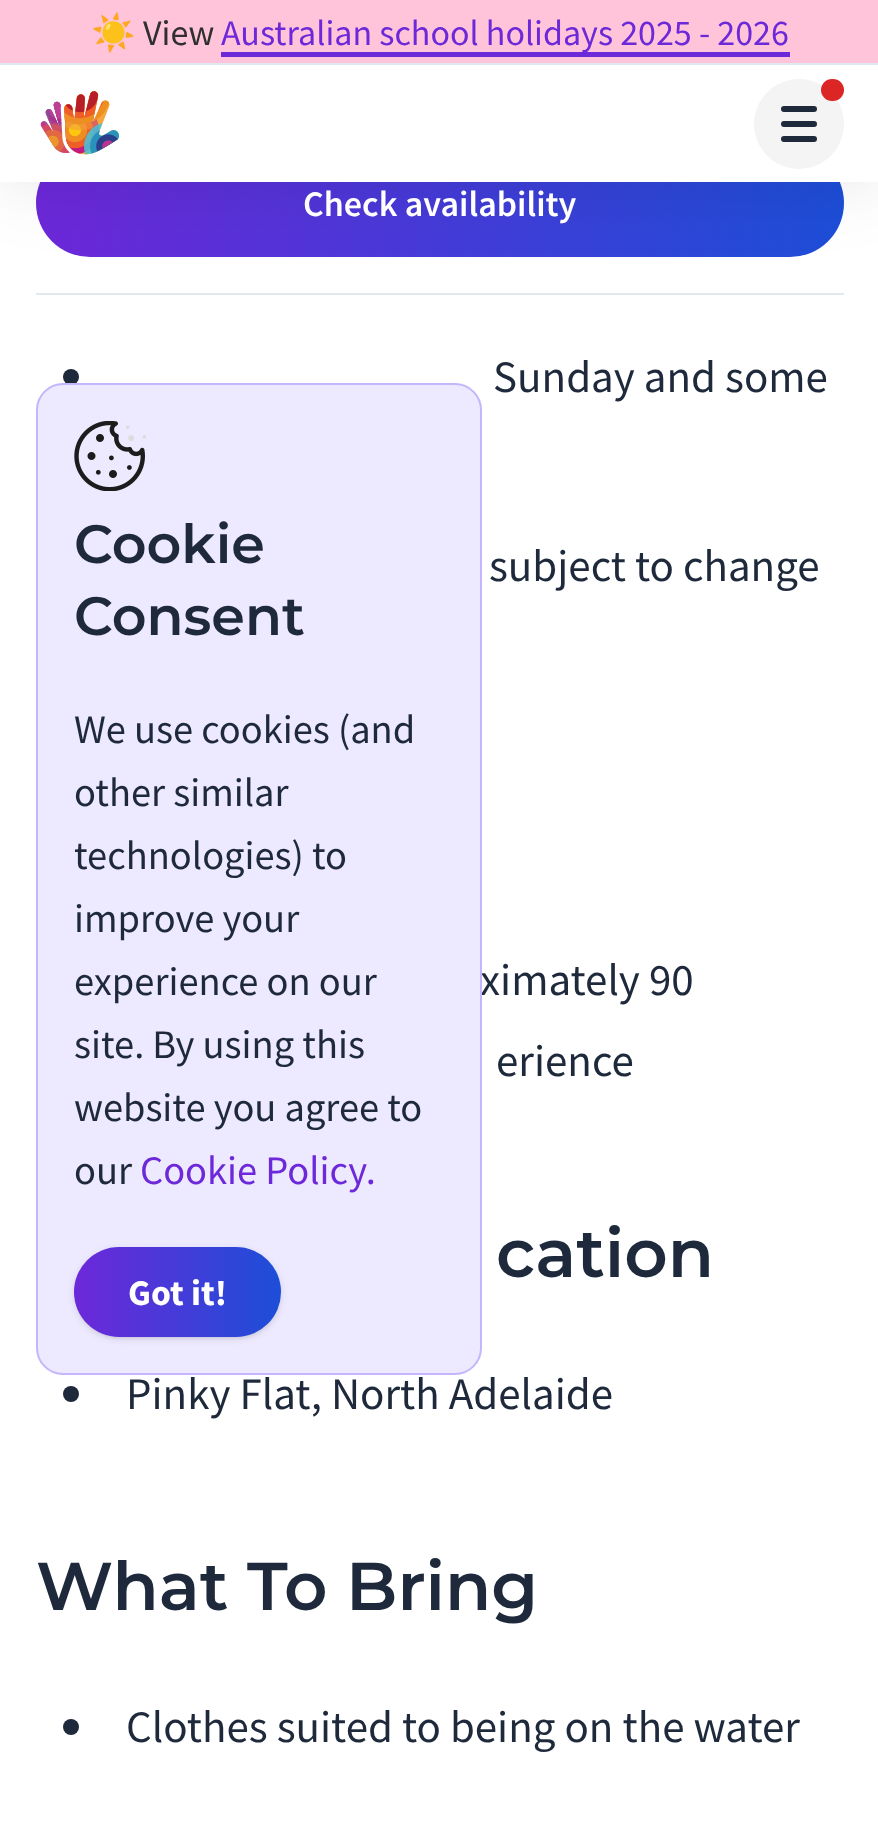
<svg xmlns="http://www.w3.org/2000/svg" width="878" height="1823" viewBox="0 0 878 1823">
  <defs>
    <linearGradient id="g1" gradientUnits="userSpaceOnUse" x1="36" y1="203" x2="844" y2="202"><stop offset="0" stop-color="rgb(109,40,217)"/><stop offset="1" stop-color="rgb(29,78,216)"/></linearGradient>
    <linearGradient id="g2" gradientUnits="userSpaceOnUse" x1="74" y1="1292" x2="281" y2="1292"><stop offset="0" stop-color="rgb(109,40,217)"/><stop offset="1" stop-color="rgb(29,78,216)"/></linearGradient>
  </defs>
  <rect width="100%" height="100%" fill="rgb(255,255,255)"/>
  <rect x="36" y="149" width="808" height="108" rx="54" fill="url(#g1)"/>
  <rect x="0" y="0" width="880" height="182" fill="rgba(0,0,0,0.1)" filter="blur(36px)"/>
  <rect x="0" y="65" width="878" height="117" fill="rgb(255,255,255)"/>
  <rect x="0" y="0" width="878" height="63" fill="rgb(255,196,217)"/>
  <rect x="0" y="63" width="878" height="2" fill="rgb(226,232,240)"/>
  <text x="91" y="45" font-family="Noto Color Emoji" font-size="36" fill="rgb(47,47,47)">☀️</text>
  <text x="143" y="45" font-family="Source Sans Pro" font-size="36" fill="rgb(47,47,47)">View</text>
  <rect x="221" y="52" width="569" height="5" fill="rgb(109,40,217)"/>
  <text x="221" y="45" font-family="Source Sans Pro" font-size="36" fill="rgb(109,40,217)">Australian school holidays 2025 - 2026</text>
  <image x="40" y="91" width="79" height="64" href="pic1.png"/>
  <circle cx="799" cy="124" r="45" fill="rgb(244,244,245)"/>
  <rect x="821" y="79" width="23" height="22" rx="11" fill="rgb(220,38,38)"/>
  <path d="M784 124H814M784 109H814M784 139H814" fill="none" stroke="rgb(30,41,59)" stroke-width="6" stroke-linecap="round" stroke-linejoin="round"/>
  <rect x="36" y="293" width="808" height="2" fill="rgb(226,232,240)"/>
  <text x="303" y="216" font-family="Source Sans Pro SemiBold" font-size="36" font-weight="600" fill="rgb(255,255,255)">Check availability</text>
  <circle cx="71" cy="377" r="8" fill="rgb(30,41,59)"/>
  <g font-family="Source Sans Pro" font-size="45" fill="rgb(30,41,59)">
    <text x="493" y="392">Sunday and some</text>
    <text x="489" y="581">subject to change</text>
    <text x="480" y="995">ximately 90</text>
    <text x="496" y="1076">erience</text>
  </g>
  <text x="496" y="1277" font-family="Montserrat" font-size="67.5" font-weight="600" fill="rgb(30,41,59)">cation</text>
  <circle cx="71" cy="1394" r="8" fill="rgb(30,41,59)"/>
  <text x="126" y="1409" font-family="Source Sans Pro" font-size="45" fill="rgb(30,41,59)">Pinky Flat, North Adelaide</text>
  <text x="36" y="1610" font-family="Montserrat" font-size="67.5" font-weight="600" fill="rgb(30,41,59)">What To Bring</text>
  <circle cx="71" cy="1727" r="8" fill="rgb(30,41,59)"/>
  <text x="126" y="1742" font-family="Source Sans Pro" font-size="45" fill="rgb(30,41,59)">Clothes suited to being on the water</text>
  <rect x="37" y="384" width="444" height="990" rx="26" fill="rgb(237,233,254)" stroke="rgb(196,181,253)" stroke-width="2"/>
  <image x="74" y="421" width="72" height="70" href="pic2.png"/>
  <g font-family="Montserrat" font-size="54" font-weight="600" fill="rgb(30,41,59)">
    <text>
      <tspan x="74" y="563">Cookie</tspan>
      <tspan x="74" y="635">Consent</tspan>
    </text>
  </g>
  <g font-family="Source Sans Pro" font-size="40.5" fill="rgb(30,41,59)">
    <text>
      <tspan x="74" y="743">We use cookies (and</tspan>
      <tspan x="74" y="806">other similar</tspan>
      <tspan x="74" y="869">technologies) to</tspan>
      <tspan x="74" y="932">improve your</tspan>
      <tspan x="74" y="995">experience on our</tspan>
      <tspan x="74" y="1058">site. By using this</tspan>
      <tspan x="74" y="1121">website you agree to</tspan>
      <tspan x="74" y="1184">our</tspan>
    </text>
  </g>
  <text x="140" y="1184" font-family="Source Sans Pro" font-size="40.5" fill="rgb(109,40,217)">Cookie Policy.</text>
  <rect x="77" y="1251" width="202" height="86" rx="43" fill="rgba(0,0,0,0.1)" filter="blur(2px)"/>
  <rect x="74" y="1249" width="207" height="90" rx="45" fill="rgba(0,0,0,0.1)" filter="blur(3.5px)"/>
  <rect x="74" y="1247" width="207" height="90" rx="45" fill="url(#g2)"/>
  <text x="128" y="1305" font-family="Source Sans Pro" font-size="36" font-weight="bold" fill="rgb(255,255,255)">Got it!</text>
</svg>
